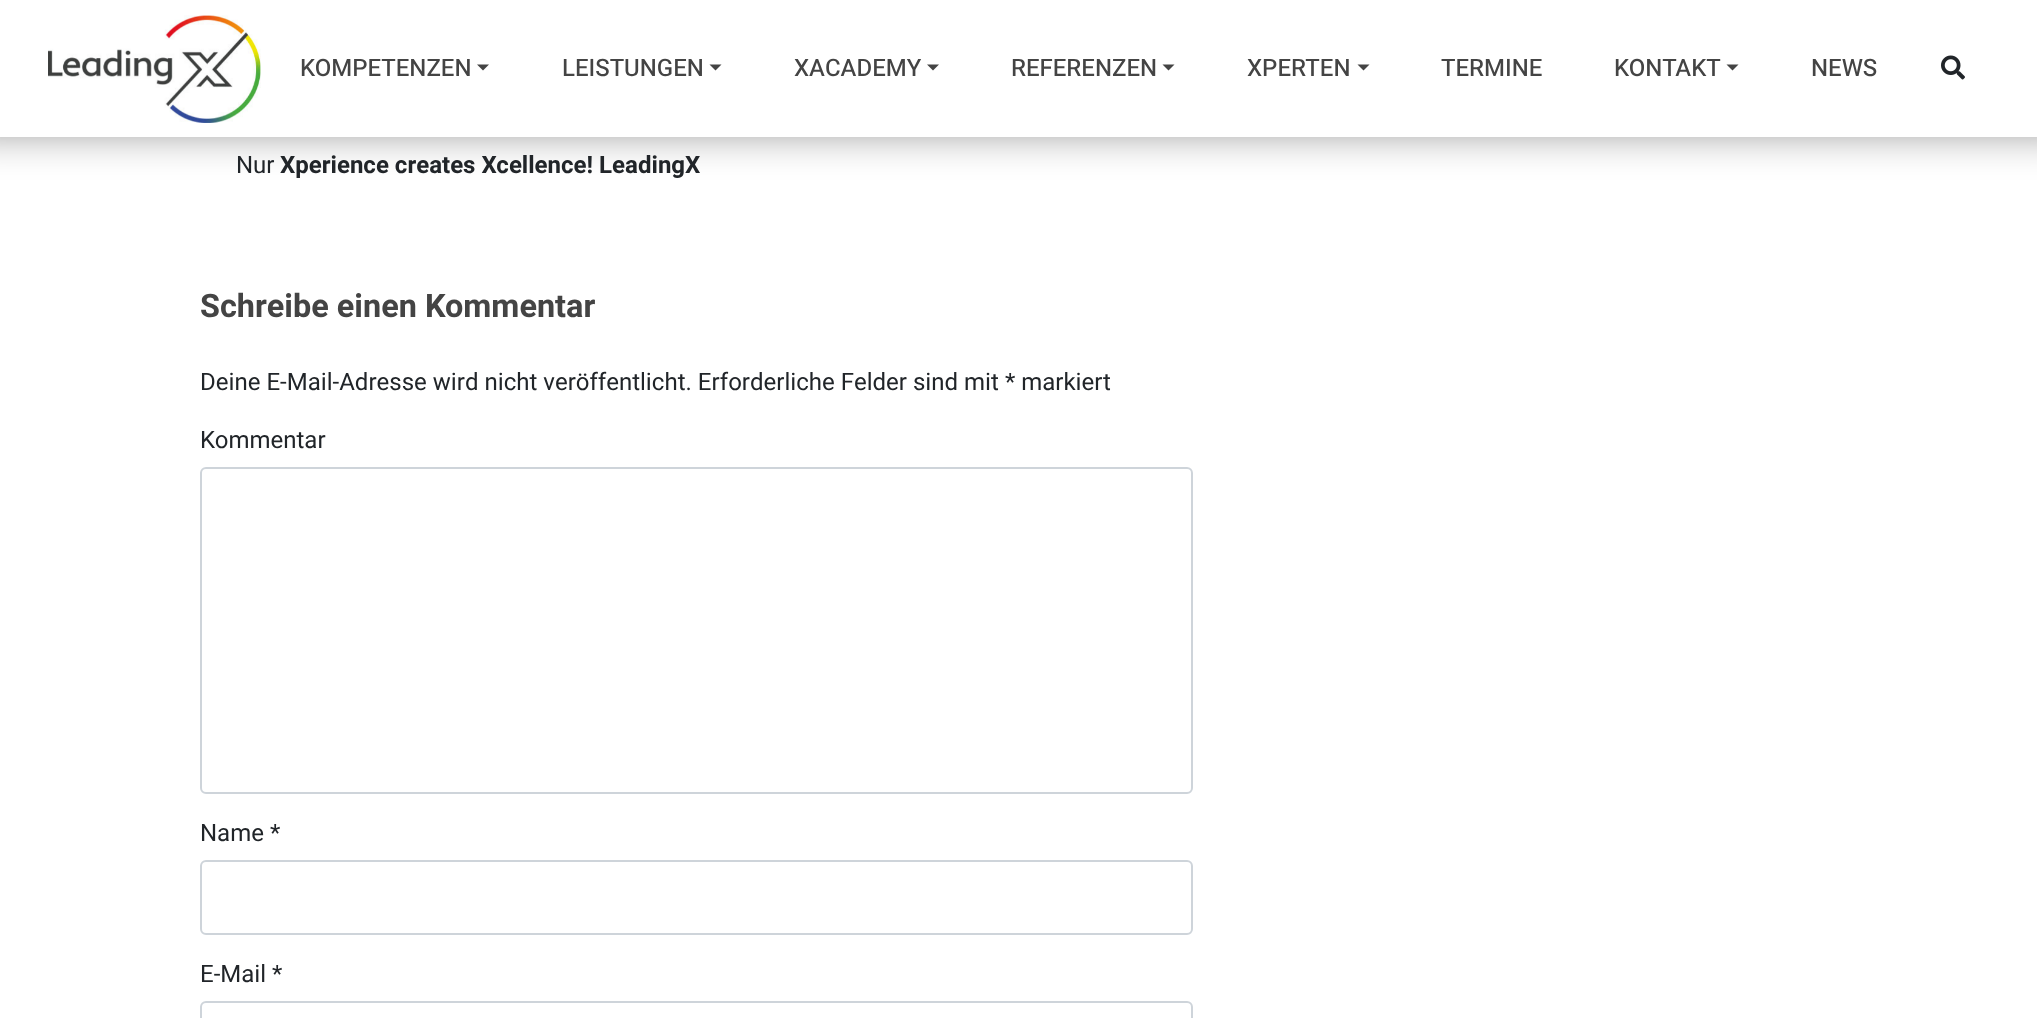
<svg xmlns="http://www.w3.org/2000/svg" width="2037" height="1018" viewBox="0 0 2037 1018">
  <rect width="100%" height="100%" fill="rgb(255,255,255)"/>
  <rect x="-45" y="-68" width="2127" height="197" fill="rgba(0,0,0,0.5)" filter="blur(22.5px)"/>
  <rect x="0" y="0" width="2037" height="137" fill="rgb(255,255,255)"/>
  <image x="48" y="15" width="213" height="108" href="pic1.png"/>
  <text x="300" y="76" font-family="Heebo" font-size="24" font-weight="500" fill="rgb(68,68,68)">KOMPETENZEN</text>
  <path d="M477 64.5H489L483 70.5Z" fill="rgb(68,68,68)"/>
  <text x="562" y="76" font-family="Heebo" font-size="24" font-weight="500" fill="rgb(68,68,68)">LEISTUNGEN</text>
  <path d="M709.5 64.5H721.5L715.5 70.5Z" fill="rgb(68,68,68)"/>
  <text x="794" y="76" font-family="Heebo" font-size="24" font-weight="500" fill="rgb(68,68,68)">XACADEMY</text>
  <path d="M927 64.5H939L933 70.5Z" fill="rgb(68,68,68)"/>
  <text x="1011" y="76" font-family="Heebo" font-size="24" font-weight="500" fill="rgb(68,68,68)">REFERENZEN</text>
  <path d="M1162.5 64.5H1174.5L1168.5 70.5Z" fill="rgb(68,68,68)"/>
  <text x="1247" y="76" font-family="Heebo" font-size="24" font-weight="500" fill="rgb(68,68,68)">XPERTEN</text>
  <path d="M1357.5 64.5H1369.5L1363.5 70.5Z" fill="rgb(68,68,68)"/>
  <g font-family="Heebo" font-size="24" font-weight="500" fill="rgb(68,68,68)">
    <text x="1441" y="76">TERMINE</text>
    <text x="1614" y="76">KONTAKT</text>
  </g>
  <path d="M1726.5 64.5H1738.5L1732.5 70.5Z" fill="rgb(68,68,68)"/>
  <text x="1811" y="76" font-family="Heebo" font-size="24" font-weight="500" fill="rgb(68,68,68)">NEWS</text>
  <image x="1941" y="55" width="24" height="25" href="pic2.png"/>
  <text x="236" y="173" font-family="Heebo" font-size="24" fill="rgb(33,37,41)">Nur</text>
  <text x="280" y="173" font-family="Heebo" font-size="24" font-weight="bold" fill="rgb(33,37,41)">Xperience creates Xcellence! LeadingX</text>
  <text x="200" y="317" font-family="Heebo" font-size="32.4" font-weight="bold" fill="rgb(68,68,68)">Schreibe einen Kommentar</text>
  <g font-family="Heebo" font-size="24" fill="rgb(33,37,41)">
    <text x="200" y="390">Deine E-Mail-Adresse wird nicht veröffentlicht. Erforderliche Felder sind mit * markiert</text>
    <text x="200" y="448">Kommentar</text>
  </g>
  <rect x="201" y="468" width="991" height="325" rx="5" fill="none" stroke="rgb(206,212,218)" stroke-width="2"/>
  <text x="200" y="841" font-family="Heebo" font-size="24" fill="rgb(33,37,41)">Name *</text>
  <rect x="201" y="861" width="991" height="73" rx="5" fill="none" stroke="rgb(206,212,218)" stroke-width="2"/>
  <text x="200" y="982" font-family="Heebo" font-size="24" fill="rgb(33,37,41)">E-Mail *</text>
  <rect x="201" y="1002" width="991" height="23" rx="5" fill="none" stroke="rgb(206,212,218)" stroke-width="2"/>
</svg>
